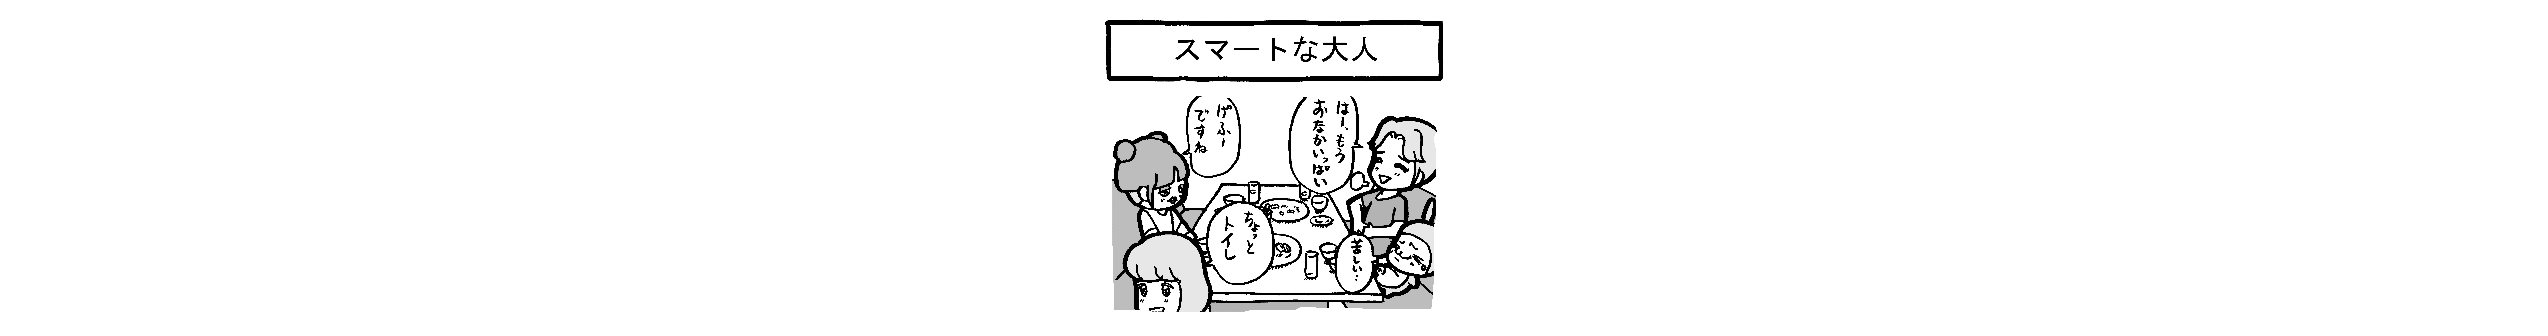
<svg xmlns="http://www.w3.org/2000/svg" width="2548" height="336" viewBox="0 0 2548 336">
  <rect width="100%" height="100%" fill="rgb(255,255,255)"/>
  <image x="1105" y="19" width="339" height="293" href="pic1.png"/>
</svg>
